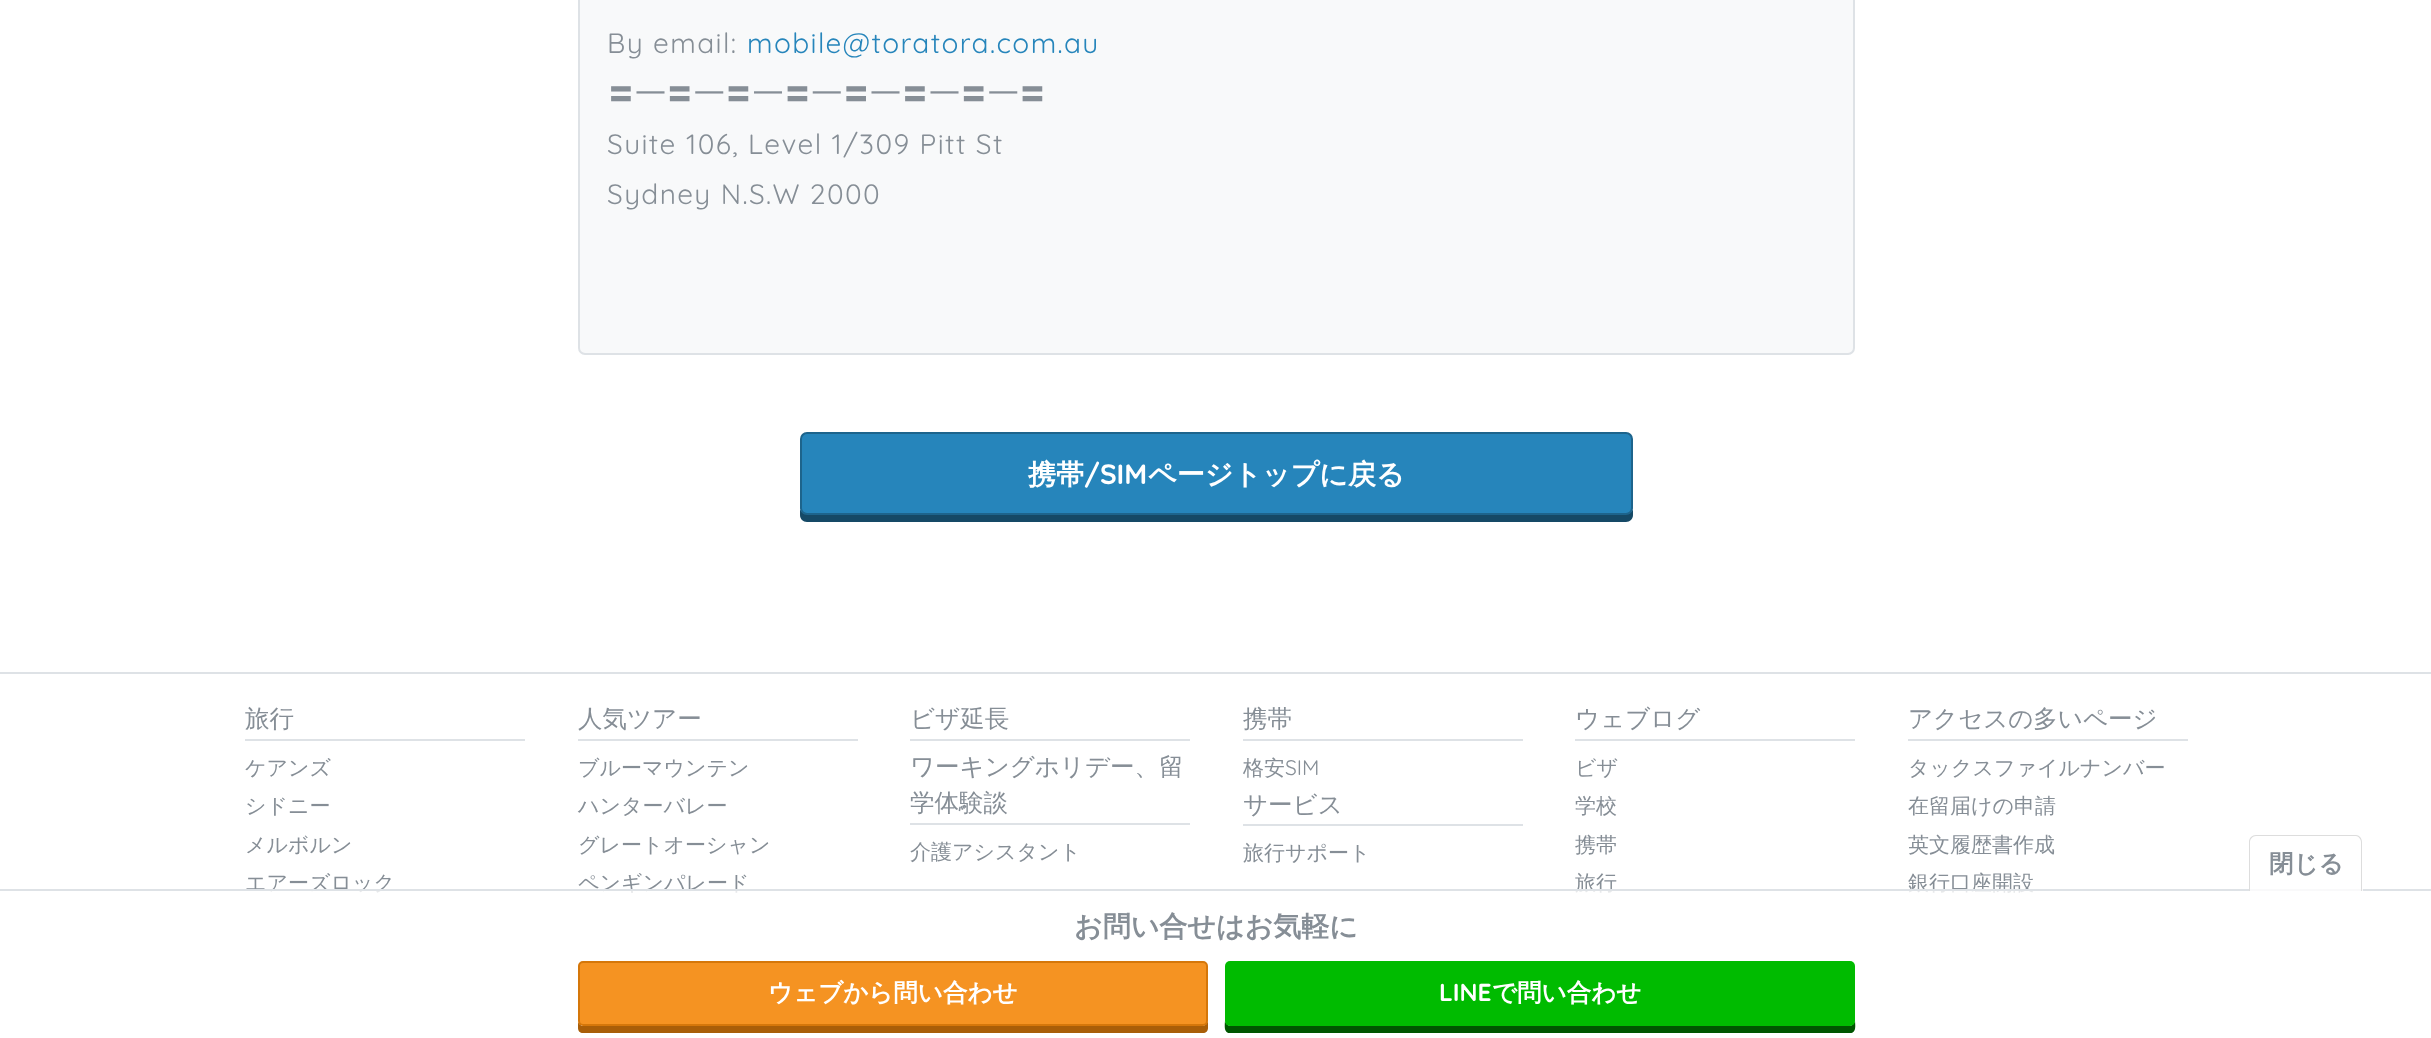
<svg xmlns="http://www.w3.org/2000/svg" width="2431" height="1038" viewBox="0 0 2431 1038">
  <rect width="100%" height="100%" fill="rgb(255,255,255)"/>
  <rect x="579" y="-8" width="1275" height="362" rx="6" fill="rgb(248,249,250)" stroke="rgb(222,226,230)" stroke-width="2"/>
  <text x="607" y="53" font-family="Quicksand" font-size="28" letter-spacing="1.4" fill="rgb(134,142,150)">By email:</text>
  <text x="747" y="53" font-family="Quicksand" font-size="28" letter-spacing="1.4" fill="rgb(38,133,187)">mobile@toratora.com.au</text>
  <text x="607" y="103" font-family="WenQuanYi Zen Hei" font-size="28" font-weight="500" letter-spacing="1.4" fill="rgb(134,142,150)">〓━〓━〓━〓━〓━〓━〓━〓</text>
  <g font-family="Quicksand" font-size="28" letter-spacing="1.4" fill="rgb(134,142,150)">
    <text>
      <tspan x="607" y="154">Suite 106, Level 1/309 Pitt St</tspan>
      <tspan x="607" y="204">Sydney N.S.W 2000</tspan>
    </text>
  </g>
  <path d="M800 509V515C800 519 803 522 807 522H1626C1630 522 1633 519 1633 515V444V508C1633 511 1630 514 1626 514H807C804 514 801 512 800 509Z" fill="rgb(21,73,102)"/>
  <rect x="801" y="433" width="831" height="81" rx="6" fill="rgb(38,133,187)" stroke="rgb(29,100,140)" stroke-width="2"/>
  <text x="1028" y="484" font-family="WenQuanYi Zen Hei" font-size="28" font-weight="bold" fill="rgb(255,255,255)">携帯</text>
  <text x="1084" y="484" font-family="Quicksand" font-size="28" font-weight="bold" fill="rgb(255,255,255)">/SIM</text>
  <text x="1148" y="484" font-family="WenQuanYi Zen Hei" font-size="28" font-weight="bold" fill="rgb(255,255,255)">ページトップに戻る</text>
  <rect x="0" y="672" width="2431" height="2" fill="rgb(222,226,230)"/>
  <rect x="245" y="739" width="280" height="2" fill="rgb(222,226,230)"/>
  <text x="245" y="727" font-family="WenQuanYi Zen Hei" font-size="24.5" font-weight="500" fill="rgb(134,142,150)">旅行</text>
  <g font-family="WenQuanYi Zen Hei" font-size="21" font-weight="500" fill="rgb(134,142,150)">
    <text>
      <tspan x="245" y="775">ケアンズ</tspan>
      <tspan x="245" y="813">シドニー</tspan>
      <tspan x="245" y="852">メルボルン</tspan>
      <tspan x="245" y="890">エアーズロック</tspan>
    </text>
  </g>
  <rect x="578" y="739" width="280" height="2" fill="rgb(222,226,230)"/>
  <text x="578" y="727" font-family="WenQuanYi Zen Hei" font-size="24.5" font-weight="500" fill="rgb(134,142,150)">人気ツアー</text>
  <g font-family="WenQuanYi Zen Hei" font-size="21" font-weight="500" fill="rgb(134,142,150)">
    <text>
      <tspan x="578" y="775">ブルーマウンテン</tspan>
      <tspan x="578" y="813">ハンターバレー</tspan>
      <tspan x="578" y="852">グレートオーシャン</tspan>
      <tspan x="578" y="890">ペンギンパレード</tspan>
    </text>
  </g>
  <rect x="910" y="739" width="280" height="2" fill="rgb(222,226,230)"/>
  <text x="910" y="727" font-family="WenQuanYi Zen Hei" font-size="24.5" font-weight="500" fill="rgb(134,142,150)">ビザ延長</text>
  <rect x="910" y="823" width="280" height="2" fill="rgb(222,226,230)"/>
  <g font-family="WenQuanYi Zen Hei" font-size="24.5" font-weight="500" fill="rgb(134,142,150)">
    <text>
      <tspan x="910" y="775">ワーキングホリデー、留</tspan>
      <tspan x="910" y="811">学体験談</tspan>
    </text>
  </g>
  <text x="910" y="859" font-family="WenQuanYi Zen Hei" font-size="21" font-weight="500" fill="rgb(134,142,150)">介護アシスタント</text>
  <rect x="1243" y="739" width="280" height="2" fill="rgb(222,226,230)"/>
  <text x="1243" y="727" font-family="WenQuanYi Zen Hei" font-size="24.5" font-weight="500" fill="rgb(134,142,150)">携帯</text>
  <text x="1243" y="775" font-family="WenQuanYi Zen Hei" font-size="21" font-weight="500" fill="rgb(134,142,150)">格安</text>
  <text x="1285" y="775" font-family="Quicksand" font-size="21" fill="rgb(134,142,150)">SIM</text>
  <rect x="1243" y="824" width="280" height="2" fill="rgb(222,226,230)"/>
  <text x="1243" y="813" font-family="WenQuanYi Zen Hei" font-size="24.5" font-weight="500" fill="rgb(134,142,150)">サービス</text>
  <text x="1243" y="860" font-family="WenQuanYi Zen Hei" font-size="21" font-weight="500" fill="rgb(134,142,150)">旅行サポート</text>
  <rect x="1575" y="739" width="280" height="2" fill="rgb(222,226,230)"/>
  <text x="1575" y="727" font-family="WenQuanYi Zen Hei" font-size="24.5" font-weight="500" fill="rgb(134,142,150)">ウェブログ</text>
  <g font-family="WenQuanYi Zen Hei" font-size="21" font-weight="500" fill="rgb(134,142,150)">
    <text>
      <tspan x="1575" y="775">ビザ</tspan>
      <tspan x="1575" y="813">学校</tspan>
      <tspan x="1575" y="852">携帯</tspan>
      <tspan x="1575" y="890">旅行</tspan>
    </text>
  </g>
  <rect x="1908" y="739" width="280" height="2" fill="rgb(222,226,230)"/>
  <text x="1908" y="727" font-family="WenQuanYi Zen Hei" font-size="24.5" font-weight="500" fill="rgb(134,142,150)">アクセスの多いページ</text>
  <g font-family="WenQuanYi Zen Hei" font-size="21" font-weight="500" fill="rgb(134,142,150)">
    <text>
      <tspan x="1908" y="775">タックスファイルナンバー</tspan>
      <tspan x="1908" y="813">在留届けの申請</tspan>
      <tspan x="1908" y="852">英文履歴書作成</tspan>
      <tspan x="1908" y="890">銀行口座開設</tspan>
    </text>
  </g>
  <rect x="270" y="891" width="1763" height="2" fill="rgba(255,255,255,0.8)"/>
  <rect x="0" y="889" width="2431" height="2" fill="rgb(222,226,230)"/>
  <path d="M2256 835H2356C2360 835 2363 838 2363 842V891H2249V842C2249 838 2252 835 2256 835Z" fill="rgba(255,255,255,0.8)"/>
  <path d="M2256 835H2356C2359 835 2362 838 2362 842V891H2249V842C2249 838 2252 835 2256 835ZM2256 836H2356C2358 836 2361 839 2361 842V891H2250V842C2250 839 2253 836 2256 836Z" fill="rgb(221,221,221)" fill-rule="evenodd"/>
  <text x="2269" y="872" font-family="WenQuanYi Zen Hei" font-size="24.5" font-weight="bold" fill="rgb(134,142,150)">閉じる</text>
  <text x="1074" y="936" font-family="WenQuanYi Zen Hei" font-size="28" font-weight="bold" fill="rgb(134,142,150)">お問い合せはお気軽に</text>
  <path d="M578 1022V1028C578 1031 580 1033 583 1033H1203C1206 1033 1208 1031 1208 1028V973V971V1020C1208 1023 1205 1026 1202 1026H583C581 1026 579 1024 578 1022Z" fill="rgb(169,94,8)"/>
  <rect x="579" y="962" width="628" height="63" rx="4" fill="rgb(245,147,34)" stroke="rgb(213,119,10)" stroke-width="2"/>
  <text x="768" y="1001" font-family="WenQuanYi Zen Hei" font-size="24.5" font-weight="bold" fill="rgb(255,255,255)">ウェブから問い合わせ</text>
  <path d="M1225 1020C1225 1024 1223 1033 1230 1033H1850C1857 1033 1855 1024 1855 1020C1855 1023 1852 1026 1849 1026H1231C1228 1026 1225 1023 1225 1020Z" fill="rgb(0,85,0)"/>
  <rect x="1225" y="961" width="630" height="65" rx="5" fill="rgb(0,187,0)"/>
  <text x="1439" y="1001" font-family="Quicksand" font-size="24.5" font-weight="bold" fill="rgb(255,255,255)">LINE</text>
  <text x="1492" y="1001" font-family="WenQuanYi Zen Hei" font-size="24.5" font-weight="bold" fill="rgb(255,255,255)">で問い合わせ</text>
</svg>
